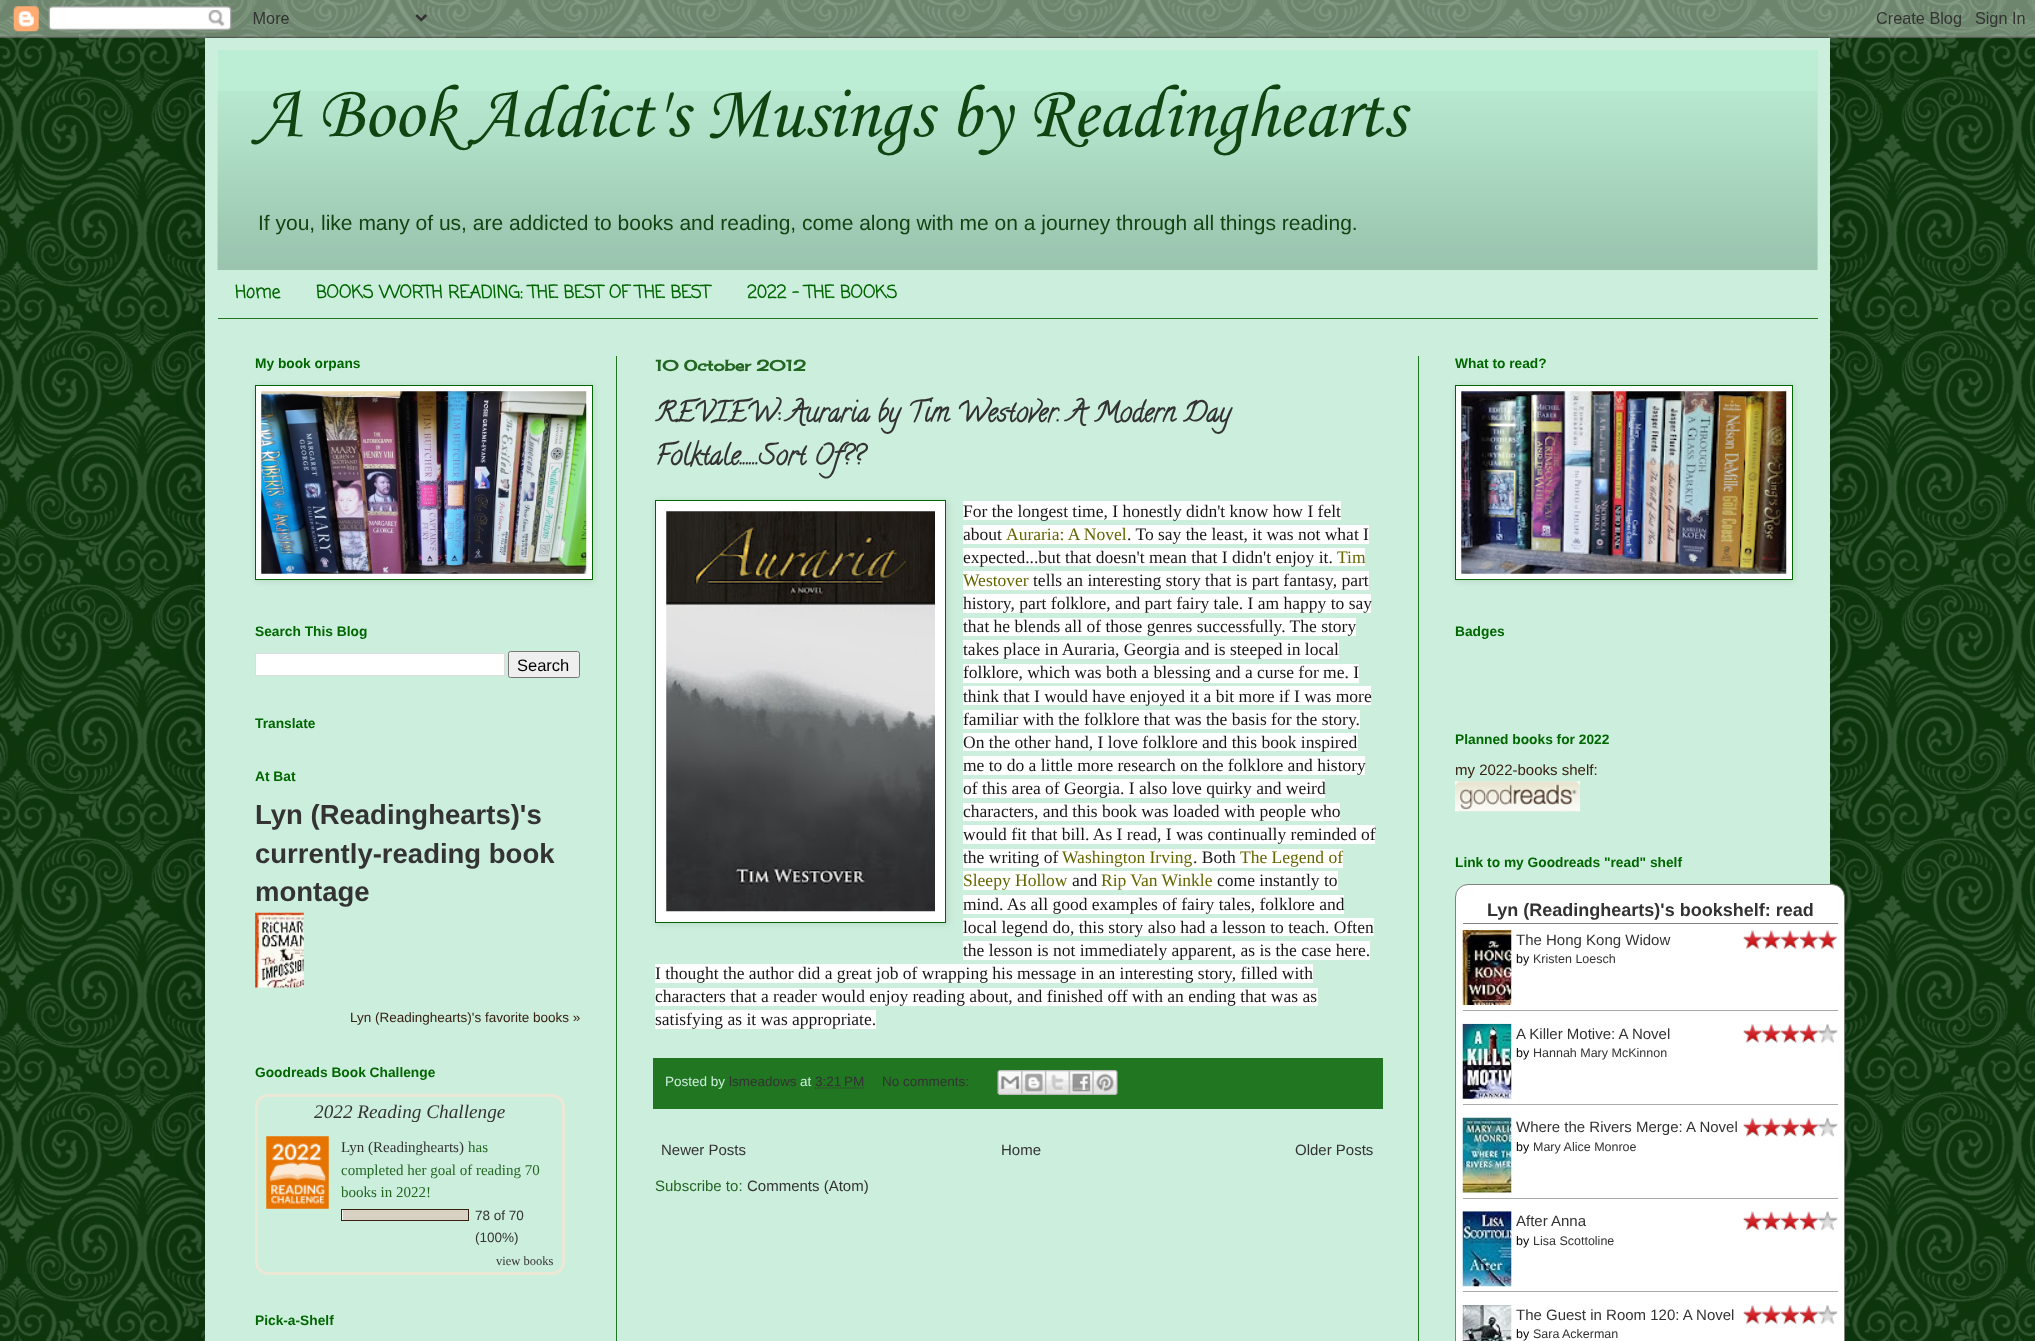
<svg xmlns="http://www.w3.org/2000/svg" width="2035" height="1341" viewBox="0 0 2035 1341">
  <rect width="100%" height="100%" fill="rgb(17,68,17)"/>
  <image x="0" y="0" width="2035" height="1341" href="pic1.png"/>
  <rect x="205" y="38" width="1625" height="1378" fill="rgba(0,0,0,0.15)" filter="blur(25px)"/>
  <image x="0" y="0" width="2035" height="38" href="pic2.png"/>
  <rect x="205" y="38" width="1625" height="1303" fill="rgb(204,238,221)"/>
  <rect x="218" y="50" width="1600" height="220" fill="rgb(187,238,212)"/>
  <image x="217" y="91" width="1601" height="179" href="pic3.png"/>
  <text x="255" y="136" font-family="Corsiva" font-size="75" fill="rgb(17,68,17)">A Book Addict's Musings by Readinghearts</text>
  <text x="258" y="230" font-family="Liberation Sans" font-size="21" fill="rgb(17,68,17)">If you, like many of us, are addicted to books and reading, come along with me on a journey through all things reading.</text>
  <rect x="218" y="318" width="1600" height="1" fill="rgb(33,118,33)"/>
  <g font-family="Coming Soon" font-size="17.5" font-weight="bold" fill="rgb(0,102,0)">
    <text x="235" y="298">Home</text>
    <text x="316" y="298">BOOKS WORTH READING: THE BEST OF THE BEST</text>
    <text x="747" y="298">2022 - THE BOOKS</text>
  </g>
  <rect x="616" y="356" width="1" height="985" fill="rgb(33,118,33)"/>
  <rect x="1418" y="356" width="1" height="985" fill="rgb(33,118,33)"/>
  <text x="255" y="368" font-family="Liberation Sans" font-size="13.75" font-weight="bold" fill="rgb(0,102,0)">My book orpans</text>
  <rect x="256" y="386" width="338" height="195" fill="rgba(0,0,0,0.1)" filter="blur(3px)"/>
  <rect x="255.5" y="385.5" width="337" height="194" fill="rgb(255,255,255)" stroke="rgb(0,102,0)"/>
  <image x="261" y="391" width="326" height="183" href="pic4.png"/>
  <text x="255" y="636" font-family="Liberation Sans" font-size="13.75" font-weight="bold" fill="rgb(0,102,0)">Search This Blog</text>
  <rect x="255.5" y="653.5" width="249" height="22" fill="rgb(255,255,255)" stroke="rgb(221,221,221)"/>
  <rect x="508.5" y="651.5" width="71" height="26" rx="2" fill="rgb(239,239,239)" stroke="rgb(118,118,118)"/>
  <text x="517" y="671" font-family="Liberation Sans" font-size="16.5" fill="rgb(0,0,0)">Search</text>
  <g font-family="Liberation Sans" font-size="13.75" font-weight="bold" fill="rgb(0,102,0)">
    <text x="255" y="728">Translate</text>
    <text x="255" y="781">At Bat</text>
  </g>
  <g font-family="Liberation Sans" font-size="27.5" font-weight="bold" fill="rgb(51,51,51)">
    <text>
      <tspan x="255" y="824">Lyn (Readinghearts)'s</tspan>
      <tspan x="255" y="863">currently-reading book</tspan>
      <tspan x="255" y="901">montage</tspan>
    </text>
  </g>
  <image x="255" y="912" width="49" height="76" href="pic5.png"/>
  <text x="350" y="1022" font-family="Liberation Sans" font-size="13.5" fill="rgb(56,33,16)">Lyn (Readinghearts)'s favorite books »</text>
  <text x="255" y="1077" font-family="Liberation Sans" font-size="13.75" font-weight="bold" fill="rgb(0,102,0)">Goodreads Book Challenge</text>
  <rect x="256.5" y="1095.5" width="307" height="178" rx="11.5" fill="none" stroke="rgb(235,232,213)" stroke-width="3"/>
  <text x="314" y="1118" font-family="Liberation Serif" font-size="19.25" font-style="italic" fill="rgb(51,51,51)">2022 Reading Challenge</text>
  <image x="266" y="1136" width="63" height="73" href="pic6.png"/>
  <text x="341" y="1152" font-family="Liberation Serif" font-size="15" fill="rgb(51,51,51)">Lyn (Readinghearts)</text>
  <g font-family="Liberation Serif" font-size="15" fill="rgb(34,102,34)">
    <text x="468" y="1152">has</text>
    <text>
      <tspan x="341" y="1175">completed her goal of reading 70</tspan>
      <tspan x="341" y="1197">books in 2022!</tspan>
    </text>
  </g>
  <rect x="342" y="1210" width="1" height="10" fill="rgb(255,255,255)"/>
  <rect x="341.5" y="1209.5" width="127" height="11" fill="none" stroke="rgb(56,33,16)"/>
  <rect x="343" y="1210" width="125" height="10" fill="rgb(215,210,196)"/>
  <g font-family="Liberation Sans" font-size="13.5" fill="rgb(51,51,51)">
    <text>
      <tspan x="475" y="1220">78 of 70</tspan>
      <tspan x="475" y="1242">(100%)</tspan>
    </text>
  </g>
  <text x="496" y="1265" font-family="Liberation Serif" font-size="12.5" fill="rgb(51,51,51)">view books</text>
  <text x="255" y="1325" font-family="Liberation Sans" font-size="13.75" font-weight="bold" fill="rgb(0,102,0)">Pick-a-Shelf</text>
  <text x="655" y="371" font-family="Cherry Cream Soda" font-size="15" font-weight="bold" fill="rgb(34,102,34)">10 October 2012</text>
  <g font-family="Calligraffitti" font-size="27.5" font-weight="bold" fill="rgb(51,51,51)">
    <text>
      <tspan x="655" y="421">REVIEW: Auraria by Tim Westover. A Modern Day</tspan>
      <tspan x="655" y="464">Folktale......Sort Of??</tspan>
    </text>
  </g>
  <rect x="656" y="501" width="292" height="423" fill="rgba(0,0,0,0.1)" filter="blur(3px)"/>
  <rect x="655.5" y="500.5" width="290" height="422" fill="rgb(255,255,255)" stroke="rgb(0,102,0)"/>
  <image x="666" y="511" width="269" height="401" href="pic7.png"/>
  <rect x="963" y="501" width="378" height="19" fill="rgb(255,255,255)"/>
  <text x="963" y="517" font-family="Liberation Serif" font-size="17.5" fill="rgb(24,24,24)">For the longest time, I honestly didn't know how I felt</text>
  <rect x="963" y="525" width="163" height="19" fill="rgb(255,255,255)"/>
  <text x="963" y="540" font-family="Liberation Serif" font-size="17.5" fill="rgb(24,24,24)">about</text>
  <text x="1006" y="540" font-family="Liberation Serif" font-size="17.5" fill="rgb(102,102,0)">Auraria: A Novel</text>
  <rect x="1126" y="525" width="243" height="19" fill="rgb(255,255,255)"/>
  <text x="1127" y="540" font-family="Liberation Serif" font-size="17.5" fill="rgb(24,24,24)">. To say the least, it was not what I</text>
  <rect x="963" y="548" width="402" height="18" fill="rgb(255,255,255)"/>
  <text x="963" y="563" font-family="Liberation Serif" font-size="17.5" fill="rgb(24,24,24)">expected...but that doesn't mean that I didn't enjoy it.</text>
  <text x="1337" y="563" font-family="Liberation Serif" font-size="17.5" fill="rgb(102,102,0)">Tim</text>
  <rect x="963" y="571" width="406" height="19" fill="rgb(255,255,255)"/>
  <text x="963" y="586" font-family="Liberation Serif" font-size="17.5" fill="rgb(102,102,0)">Westover</text>
  <text x="1033" y="586" font-family="Liberation Serif" font-size="17.5" fill="rgb(24,24,24)">tells an interesting story that is part fantasy, part</text>
  <rect x="963" y="594" width="408" height="19" fill="rgb(255,255,255)"/>
  <text x="963" y="609" font-family="Liberation Serif" font-size="17.5" fill="rgb(24,24,24)">history, part folklore, and part fairy tale. I am happy to say</text>
  <rect x="963" y="618" width="393" height="18" fill="rgb(255,255,255)"/>
  <text x="963" y="632" font-family="Liberation Serif" font-size="17.5" fill="rgb(24,24,24)">that he blends all of those genres successfully. The story</text>
  <rect x="963" y="640" width="376" height="19" fill="rgb(255,255,255)"/>
  <text x="963" y="655" font-family="Liberation Serif" font-size="17.5" fill="rgb(24,24,24)">takes place in Auraria, Georgia and is steeped in local</text>
  <rect x="963" y="664" width="396" height="19" fill="rgb(255,255,255)"/>
  <text x="963" y="678" font-family="Liberation Serif" font-size="17.5" fill="rgb(24,24,24)">folklore, which was both a blessing and a curse for me. I</text>
  <rect x="963" y="686" width="408" height="19" fill="rgb(255,255,255)"/>
  <text x="963" y="702" font-family="Liberation Serif" font-size="17.5" fill="rgb(24,24,24)">think that I would have enjoyed it a bit more if I was more</text>
  <rect x="963" y="710" width="397" height="19" fill="rgb(255,255,255)"/>
  <text x="963" y="725" font-family="Liberation Serif" font-size="17.5" fill="rgb(24,24,24)">familiar with the folklore that was the basis for the story.</text>
  <rect x="963" y="733" width="395" height="18" fill="rgb(255,255,255)"/>
  <text x="963" y="748" font-family="Liberation Serif" font-size="17.5" fill="rgb(24,24,24)">On the other hand, I love folklore and this book inspired</text>
  <rect x="963" y="756" width="402" height="19" fill="rgb(255,255,255)"/>
  <text x="963" y="771" font-family="Liberation Serif" font-size="17.5" fill="rgb(24,24,24)">me to do a little more research on the folklore and history</text>
  <rect x="963" y="779" width="362" height="19" fill="rgb(255,255,255)"/>
  <text x="963" y="794" font-family="Liberation Serif" font-size="17.5" fill="rgb(24,24,24)">of this area of Georgia. I also love quirky and weird</text>
  <rect x="963" y="803" width="377" height="18" fill="rgb(255,255,255)"/>
  <text x="963" y="817" font-family="Liberation Serif" font-size="17.5" fill="rgb(24,24,24)">characters, and this book was loaded with people who</text>
  <rect x="963" y="825" width="412" height="19" fill="rgb(255,255,255)"/>
  <text x="963" y="840" font-family="Liberation Serif" font-size="17.5" fill="rgb(24,24,24)">would fit that bill. As I read, I was continually reminded of</text>
  <rect x="963" y="849" width="380" height="19" fill="rgb(255,255,255)"/>
  <text x="963" y="863" font-family="Liberation Serif" font-size="17.5" fill="rgb(24,24,24)">the writing of</text>
  <text x="1062" y="863" font-family="Liberation Serif" font-size="17.5" fill="rgb(102,102,0)">Washington Irving</text>
  <text x="1193" y="863" font-family="Liberation Serif" font-size="17.5" fill="rgb(24,24,24)">. Both</text>
  <text x="1240" y="863" font-family="Liberation Serif" font-size="17.5" fill="rgb(102,102,0)">The Legend of</text>
  <rect x="963" y="871" width="375" height="19" fill="rgb(255,255,255)"/>
  <text x="963" y="886" font-family="Liberation Serif" font-size="17.5" fill="rgb(102,102,0)">Sleepy Hollow</text>
  <text x="1072" y="886" font-family="Liberation Serif" font-size="17.5" fill="rgb(24,24,24)">and</text>
  <text x="1101" y="886" font-family="Liberation Serif" font-size="17.5" fill="rgb(102,102,0)">Rip Van Winkle</text>
  <text x="1217" y="886" font-family="Liberation Serif" font-size="17.5" fill="rgb(24,24,24)">come instantly to</text>
  <rect x="963" y="895" width="381" height="19" fill="rgb(255,255,255)"/>
  <text x="963" y="910" font-family="Liberation Serif" font-size="17.5" fill="rgb(24,24,24)">mind. As all good examples of fairy tales, folklore and</text>
  <rect x="963" y="918" width="411" height="18" fill="rgb(255,255,255)"/>
  <text x="963" y="933" font-family="Liberation Serif" font-size="17.5" fill="rgb(24,24,24)">local legend do, this story also had a lesson to teach. Often</text>
  <rect x="963" y="941" width="407" height="19" fill="rgb(255,255,255)"/>
  <text x="963" y="956" font-family="Liberation Serif" font-size="17.5" fill="rgb(24,24,24)">the lesson is not immediately apparent, as is the case here.</text>
  <rect x="655" y="964" width="658" height="19" fill="rgb(255,255,255)"/>
  <text x="655" y="979" font-family="Liberation Serif" font-size="17.5" fill="rgb(24,24,24)">I thought the author did a great job of wrapping his message in an interesting story, filled with</text>
  <rect x="655" y="988" width="663" height="18" fill="rgb(255,255,255)"/>
  <text x="655" y="1002" font-family="Liberation Serif" font-size="17.5" fill="rgb(24,24,24)">characters that a reader would enjoy reading about, and finished off with an ending that was as</text>
  <rect x="655" y="1010" width="221" height="19" fill="rgb(255,255,255)"/>
  <text x="655" y="1025" font-family="Liberation Serif" font-size="17.5" fill="rgb(24,24,24)">satisfying as it was appropriate.</text>
  <rect x="653" y="1058" width="730" height="51" fill="rgb(33,118,33)"/>
  <text x="665" y="1086" font-family="Liberation Sans" font-size="13.5" fill="rgb(204,238,221)">Posted by</text>
  <text x="729" y="1086" font-family="Liberation Sans" font-size="13.5" fill="rgb(51,51,51)">lsmeadows</text>
  <text x="800" y="1086" font-family="Liberation Sans" font-size="13.5" fill="rgb(204,238,221)">at</text>
  <text x="815" y="1086" font-family="Liberation Sans" font-size="13.5" fill="rgb(51,51,51)">3:21 PM</text>
  <path d="M815 1088H864.5" fill="none" stroke="rgb(51,51,51)" stroke-width="1.2" stroke-dasharray="1.25 1.25"/>
  <text x="882" y="1086" font-family="Liberation Sans" font-size="13.5" fill="rgb(51,51,51)">No comments:</text>
  <image x="997" y="1070" width="25" height="25" href="pic8.png"/>
  <image x="1021" y="1070" width="24" height="25" href="pic9.png"/>
  <image x="1045" y="1070" width="24" height="25" href="pic10.png"/>
  <image x="1068" y="1070" width="25" height="25" href="pic11.png"/>
  <image x="1092" y="1070" width="26" height="25" href="pic12.png"/>
  <g font-family="Liberation Sans" font-size="15" fill="rgb(51,51,51)">
    <text x="661" y="1155">Newer Posts</text>
    <text x="1001" y="1155">Home</text>
    <text x="1295" y="1155">Older Posts</text>
  </g>
  <text x="655" y="1191" font-family="Liberation Sans" font-size="15" fill="rgb(34,102,34)">Subscribe to:</text>
  <text x="747" y="1191" font-family="Liberation Sans" font-size="15" fill="rgb(51,51,51)">Comments (Atom)</text>
  <text x="1455" y="368" font-family="Liberation Sans" font-size="13.75" font-weight="bold" fill="rgb(0,102,0)">What to read?</text>
  <rect x="1456" y="386" width="338" height="195" fill="rgba(0,0,0,0.1)" filter="blur(3px)"/>
  <rect x="1455.5" y="385.5" width="337" height="194" fill="rgb(255,255,255)" stroke="rgb(0,102,0)"/>
  <image x="1461" y="391" width="326" height="183" href="pic13.png"/>
  <g font-family="Liberation Sans" font-size="13.75" font-weight="bold" fill="rgb(0,102,0)">
    <text x="1455" y="636">Badges</text>
    <text x="1455" y="744">Planned books for 2022</text>
  </g>
  <text x="1455" y="775" font-family="Liberation Sans" font-size="15" fill="rgb(56,33,16)">my 2022-books shelf:</text>
  <image x="1455" y="781" width="125" height="31" href="pic14.png"/>
  <text x="1455" y="867" font-family="Liberation Sans" font-size="13.75" font-weight="bold" fill="rgb(0,102,0)">Link to my Goodreads "read" shelf</text>
  <rect x="1455.5" y="884.5" width="389" height="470" rx="12.5" fill="rgb(255,255,255)" stroke="rgb(128,128,128)"/>
  <rect x="1463" y="923" width="375" height="1" fill="rgb(128,128,128)"/>
  <text x="1487" y="916" font-family="Liberation Sans" font-size="18" font-weight="bold" fill="rgb(51,51,51)">Lyn (Readinghearts)'s bookshelf: read</text>
  <rect x="1463" y="1010" width="375" height="1" fill="rgb(170,170,170)"/>
  <image x="1462" y="930" width="50" height="75" href="pic15.png"/>
  <text x="1516" y="945" font-family="Liberation Sans" font-size="15" fill="rgb(51,51,51)">The Hong Kong Widow</text>
  <image x="1743" y="930" width="20" height="19" href="pic16.png"/>
  <image x="1762" y="930" width="20" height="19" href="pic17.png"/>
  <image x="1781" y="930" width="19" height="19" href="pic18.png"/>
  <image x="1800" y="930" width="19" height="19" href="pic19.png"/>
  <image x="1818" y="930" width="20" height="19" href="pic20.png"/>
  <text x="1516" y="963" font-family="Liberation Sans" font-size="12.5" fill="rgb(0,0,0)">by</text>
  <text x="1533" y="963" font-family="Liberation Sans" font-size="12.5" fill="rgb(51,51,51)">Kristen Loesch</text>
  <rect x="1463" y="1104" width="375" height="1" fill="rgb(170,170,170)"/>
  <image x="1462" y="1023" width="50" height="76" href="pic21.png"/>
  <text x="1516" y="1039" font-family="Liberation Sans" font-size="15" fill="rgb(51,51,51)">A Killer Motive: A Novel</text>
  <image x="1743" y="1024" width="20" height="19" href="pic22.png"/>
  <image x="1762" y="1024" width="20" height="19" href="pic23.png"/>
  <image x="1781" y="1024" width="19" height="19" href="pic24.png"/>
  <image x="1800" y="1024" width="19" height="19" href="pic25.png"/>
  <image x="1818" y="1024" width="20" height="19" href="pic26.png"/>
  <text x="1516" y="1057" font-family="Liberation Sans" font-size="12.5" fill="rgb(0,0,0)">by</text>
  <text x="1533" y="1057" font-family="Liberation Sans" font-size="12.5" fill="rgb(51,51,51)">Hannah Mary McKinnon</text>
  <rect x="1463" y="1198" width="375" height="1" fill="rgb(170,170,170)"/>
  <image x="1462" y="1117" width="50" height="76" href="pic27.png"/>
  <text x="1516" y="1132" font-family="Liberation Sans" font-size="15" fill="rgb(51,51,51)">Where the Rivers Merge: A Novel</text>
  <image x="1743" y="1117" width="20" height="20" href="pic28.png"/>
  <image x="1762" y="1117" width="20" height="20" href="pic29.png"/>
  <image x="1781" y="1117" width="19" height="20" href="pic30.png"/>
  <image x="1800" y="1117" width="19" height="20" href="pic31.png"/>
  <image x="1818" y="1117" width="20" height="20" href="pic32.png"/>
  <text x="1516" y="1151" font-family="Liberation Sans" font-size="12.5" fill="rgb(0,0,0)">by</text>
  <text x="1533" y="1151" font-family="Liberation Sans" font-size="12.5" fill="rgb(51,51,51)">Mary Alice Monroe</text>
  <rect x="1463" y="1291" width="375" height="1" fill="rgb(170,170,170)"/>
  <image x="1462" y="1211" width="50" height="76" href="pic33.png"/>
  <text x="1516" y="1226" font-family="Liberation Sans" font-size="15" fill="rgb(51,51,51)">After Anna</text>
  <image x="1743" y="1211" width="20" height="19" href="pic34.png"/>
  <image x="1762" y="1211" width="20" height="19" href="pic35.png"/>
  <image x="1781" y="1211" width="19" height="19" href="pic36.png"/>
  <image x="1800" y="1211" width="19" height="19" href="pic37.png"/>
  <image x="1818" y="1211" width="20" height="19" href="pic38.png"/>
  <text x="1516" y="1245" font-family="Liberation Sans" font-size="12.5" fill="rgb(0,0,0)">by</text>
  <text x="1533" y="1245" font-family="Liberation Sans" font-size="12.5" fill="rgb(51,51,51)">Lisa Scottoline</text>
  <image x="1462" y="1305" width="50" height="36" href="pic39.png"/>
  <text x="1516" y="1320" font-family="Liberation Sans" font-size="15" fill="rgb(51,51,51)">The Guest in Room 120: A Novel</text>
  <image x="1743" y="1305" width="20" height="19" href="pic16.png"/>
  <image x="1762" y="1305" width="20" height="19" href="pic17.png"/>
  <image x="1781" y="1305" width="19" height="19" href="pic18.png"/>
  <image x="1800" y="1305" width="19" height="19" href="pic19.png"/>
  <image x="1818" y="1305" width="20" height="19" href="pic40.png"/>
  <text x="1516" y="1338" font-family="Liberation Sans" font-size="12.5" fill="rgb(0,0,0)">by</text>
  <g font-family="Liberation Sans" font-size="12.5" fill="rgb(51,51,51)">
    <text x="1533" y="1338">Sara</text>
    <text x="1562" y="1338">Ackerman</text>
  </g>
</svg>
